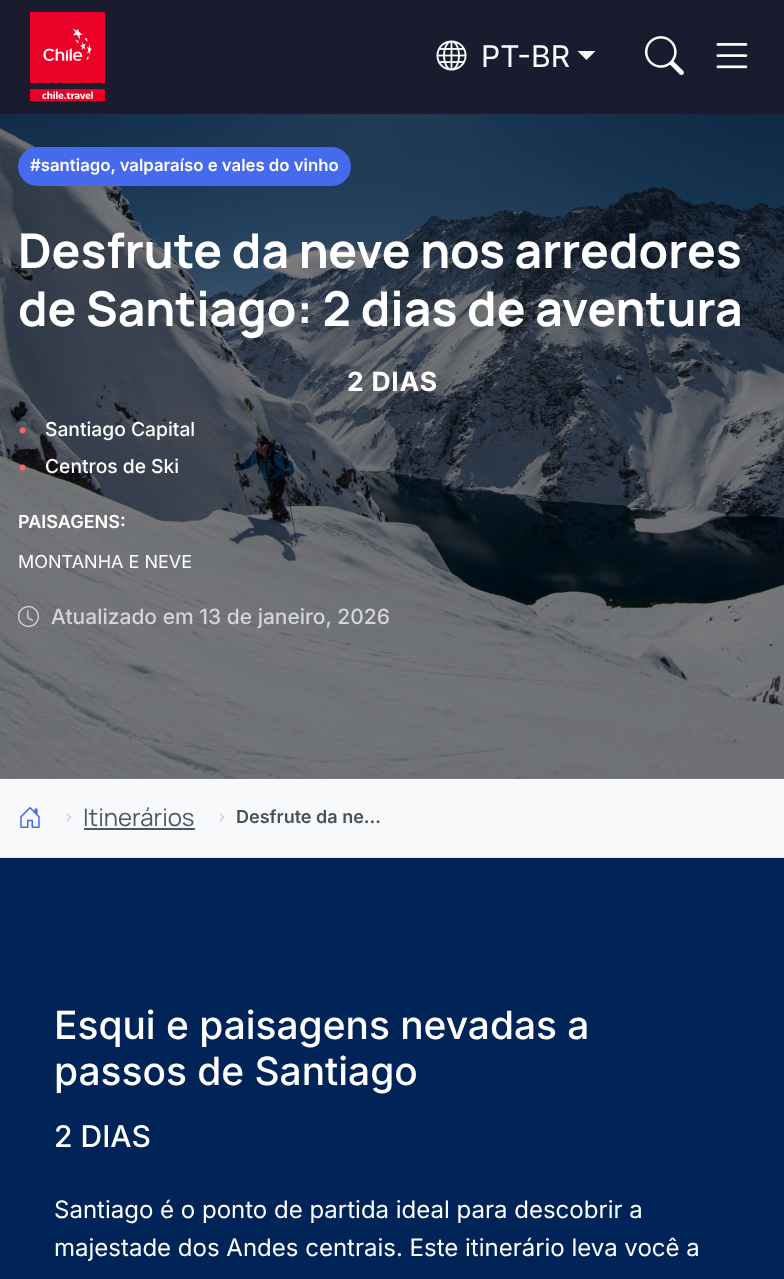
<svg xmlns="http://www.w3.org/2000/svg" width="784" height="1279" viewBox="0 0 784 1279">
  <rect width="100%" height="100%" fill="rgb(128,128,128)"/>
  <rect x="0" y="0" width="784" height="114" fill="rgb(27,27,48)"/>
  <image x="30" y="12" width="75" height="89" href="pic1.png"/>
  <image x="436" y="40" width="31" height="31" href="pic2.png"/>
  <text x="481" y="67" font-family="Inter" font-size="30" fill="rgb(248,249,250)">PT-BR</text>
  <path d="M577.5 51H595.5L586.5 60Z" fill="rgb(248,249,250)"/>
  <image x="644" y="36" width="40" height="39" href="pic3.png"/>
  <image x="716" y="43" width="32" height="26" href="pic4.png"/>
  <image x="0" y="114" width="784" height="665" href="pic5.png"/>
  <rect x="18" y="147" width="333" height="39" rx="19.5" fill="rgb(69,106,235)"/>
  <text x="30" y="171" font-family="Inter" font-size="16.75" font-weight="600" fill="rgb(255,255,255)">#santiago, valparaíso e vales do vinho</text>
  <g font-family="Manrope" font-size="48" font-weight="bold" fill="rgb(255,255,255)">
    <text>
      <tspan x="18" y="268">Desfrute da neve nos arredores</tspan>
      <tspan x="18" y="326">de Santiago: 2 dias de aventura</tspan>
    </text>
  </g>
  <text x="347" y="391" font-family="Inter" font-size="26.5" font-weight="bold" letter-spacing="0.75" fill="rgb(255,255,255)">2 DIAS</text>
  <text x="18" y="436" font-family="Inter" font-size="19.25" font-weight="bold" fill="rgb(254,101,101)">•</text>
  <text x="45" y="436" font-family="Inter" font-size="19.25" font-weight="500" fill="rgb(255,255,255)">Santiago Capital</text>
  <text x="18" y="473" font-family="Inter" font-size="19.25" font-weight="bold" fill="rgb(254,101,101)">•</text>
  <text x="45" y="473" font-family="Inter" font-size="19.25" font-weight="500" fill="rgb(255,255,255)">Centros de Ski</text>
  <text x="18" y="528" font-family="Inter" font-size="18" font-weight="600" fill="rgb(255,255,255)">PAISAGENS:</text>
  <text x="18" y="568" font-family="Inter" font-size="18" fill="rgb(255,255,255)">MONTANHA E NEVE</text>
  <image x="18" y="606" width="21" height="21" href="pic6.png"/>
  <text x="51" y="624" font-family="Inter" font-size="21" font-weight="500" fill="rgb(212,213,214)">Atualizado em 13 de janeiro, 2026</text>
  <rect x="0" y="779" width="784" height="78" fill="rgb(248,249,250)"/>
  <rect x="0" y="857" width="784" height="1" fill="rgb(233,236,239)"/>
  <image x="20" y="807" width="20" height="21" href="pic7.png"/>
  <text x="63" y="823" font-family="Manrope" font-size="18" font-weight="600" fill="rgb(203,214,227)">&gt;</text>
  <text x="83" y="826" font-family="Manrope" font-size="24" fill="rgb(78,85,103)">Itinerários</text>
  <rect x="84" y="828" width="111" height="2" fill="rgb(78,85,103)"/>
  <text x="216" y="823" font-family="Manrope" font-size="18" font-weight="600" fill="rgb(203,214,227)">&gt;</text>
  <text x="236" y="823" font-family="Inter" font-size="18" font-weight="600" fill="rgb(73,80,87)">Desfrute da ne…</text>
  <rect x="0" y="858" width="784" height="421" fill="rgb(0,35,88)"/>
  <g font-family="Inter" font-size="38.9" font-weight="500" fill="rgb(255,255,255)">
    <text>
      <tspan x="54" y="1039">Esqui e paisagens nevadas a</tspan>
      <tspan x="54" y="1085">passos de Santiago</tspan>
    </text>
  </g>
  <text x="54" y="1147" font-family="Inter" font-size="30" font-weight="500" fill="rgb(255,255,255)">2 DIAS</text>
  <g font-family="Inter" font-size="24" fill="rgb(255,255,255)">
    <text>
      <tspan x="54" y="1218">Santiago é o ponto de partida ideal para descobrir a</tspan>
      <tspan x="54" y="1256">majestade dos Andes centrais. Este itinerário leva você a</tspan>
    </text>
  </g>
</svg>
